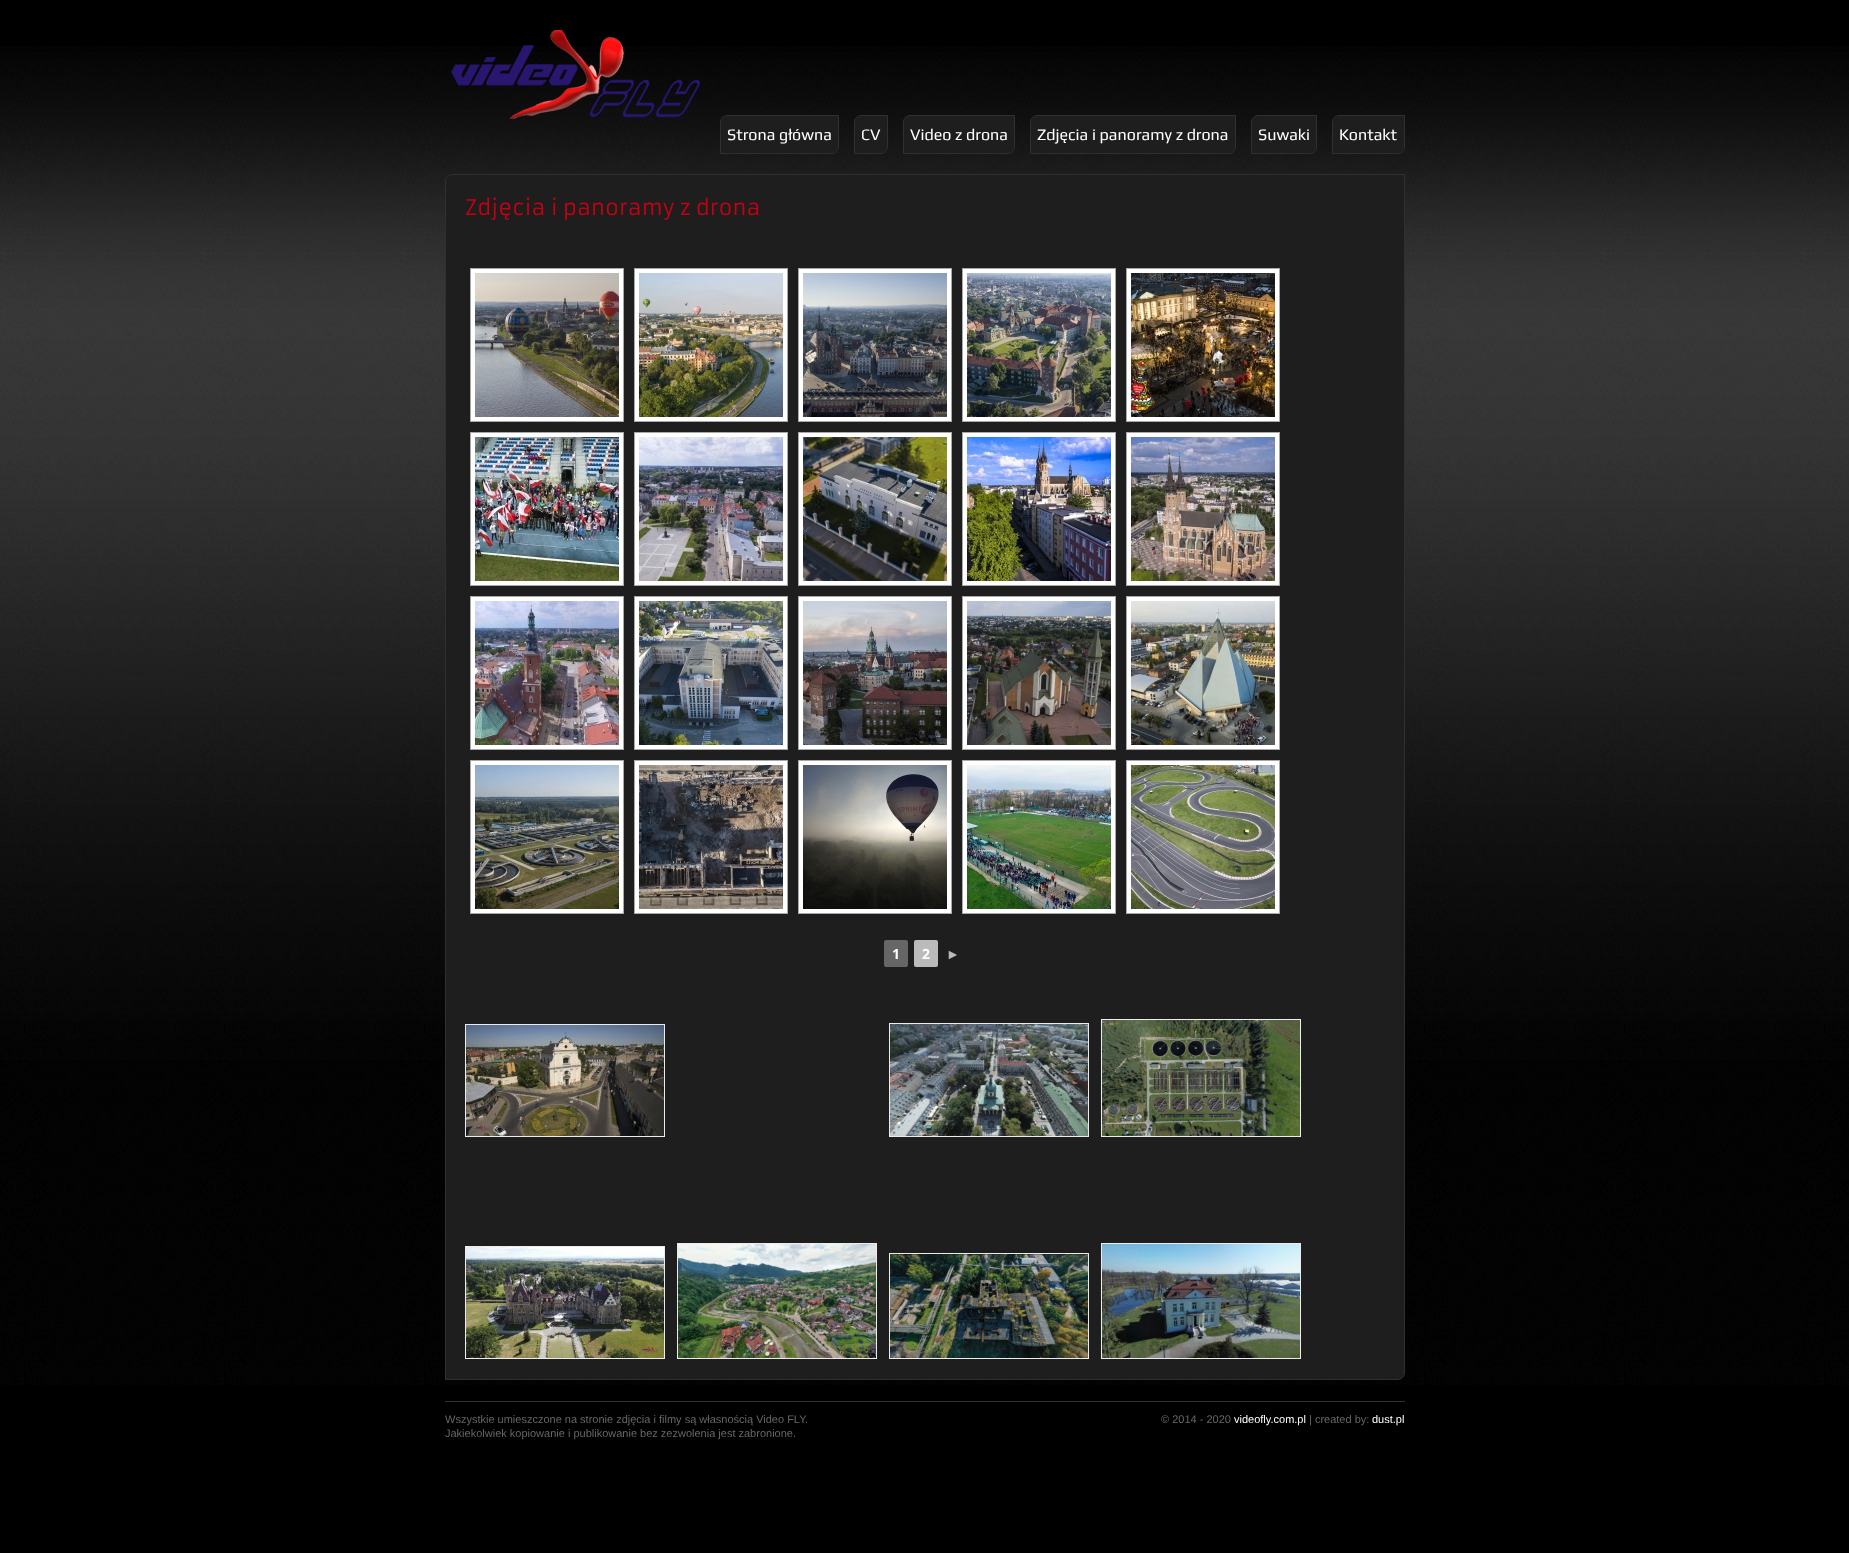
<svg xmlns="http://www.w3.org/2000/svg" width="1849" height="1553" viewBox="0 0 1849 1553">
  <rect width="100%" height="100%" fill="rgb(0,0,0)"/>
  <image x="0" y="46" width="1849" height="1339" href="pic1.png"/>
  <image x="451" y="30" width="249" height="89" href="pic2.png"/>
  <path d="M727 115.5H838.5V147C838.5 150.5 835.5 153.5 832 153.5H720.5V122C720.5 118.5 723.5 115.5 727 115.5Z" fill="rgb(30,30,30)" stroke="rgb(48,48,48)"/>
  <text x="727" y="140" font-family="Play" font-size="16.1" fill="rgb(255,255,255)">Strona główna</text>
  <path d="M861 115.5H887.5V147C887.5 150.5 884.5 153.5 881 153.5H854.5V122C854.5 118.5 857.5 115.5 861 115.5Z" fill="rgb(30,30,30)" stroke="rgb(48,48,48)"/>
  <text x="861" y="140" font-family="Play" font-size="16.1" fill="rgb(255,255,255)">CV</text>
  <path d="M910 115.5H1014.5V147C1014.5 150.5 1011.5 153.5 1008 153.5H903.5V122C903.5 118.5 906.5 115.5 910 115.5Z" fill="rgb(30,30,30)" stroke="rgb(48,48,48)"/>
  <text x="910" y="140" font-family="Play" font-size="16.1" fill="rgb(255,255,255)">Video z drona</text>
  <path d="M1037 115.5H1235.5V147C1235.5 150.5 1232.5 153.5 1229 153.5H1030.5V122C1030.5 118.5 1033.5 115.5 1037 115.5Z" fill="rgb(30,30,30)" stroke="rgb(48,48,48)"/>
  <text x="1037" y="140" font-family="Play" font-size="16.1" fill="rgb(255,255,255)">Zdjęcia i panoramy z drona</text>
  <path d="M1258 115.5H1316.5V147C1316.5 150.5 1313.5 153.5 1310 153.5H1251.5V122C1251.5 118.5 1254.5 115.5 1258 115.5Z" fill="rgb(30,30,30)" stroke="rgb(48,48,48)"/>
  <text x="1258" y="140" font-family="Play" font-size="16.1" fill="rgb(255,255,255)">Suwaki</text>
  <path d="M1339 115.5H1404.5V147C1404.5 150.5 1401.5 153.5 1398 153.5H1332.5V122C1332.5 118.5 1335.5 115.5 1339 115.5Z" fill="rgb(30,30,30)" stroke="rgb(48,48,48)"/>
  <text x="1339" y="140" font-family="Play" font-size="16.1" fill="rgb(255,255,255)">Kontakt</text>
  <path d="M452 174.5H1404.5V1373C1404.5 1376.5 1401.5 1379.5 1398 1379.5H445.5V181C445.5 177.5 448.5 174.5 452 174.5Z" fill="rgb(30,30,30)" stroke="rgb(48,48,48)"/>
  <text x="465" y="215" font-family="Armata" font-size="21" fill="rgb(202,0,18)">Zdjęcia i panoramy z drona</text>
  <rect x="470.5" y="268.5" width="153" height="153" fill="rgb(255,255,255)" stroke="rgb(169,169,169)"/>
  <image x="475" y="273" width="144" height="144" href="pic3.png"/>
  <rect x="634.5" y="268.5" width="153" height="153" fill="rgb(255,255,255)" stroke="rgb(169,169,169)"/>
  <image x="639" y="273" width="144" height="144" href="pic4.png"/>
  <rect x="798.5" y="268.5" width="153" height="153" fill="rgb(255,255,255)" stroke="rgb(169,169,169)"/>
  <image x="803" y="273" width="144" height="144" href="pic5.png"/>
  <rect x="962.5" y="268.5" width="153" height="153" fill="rgb(255,255,255)" stroke="rgb(169,169,169)"/>
  <image x="967" y="273" width="144" height="144" href="pic6.png"/>
  <rect x="1126.5" y="268.5" width="153" height="153" fill="rgb(255,255,255)" stroke="rgb(169,169,169)"/>
  <image x="1131" y="273" width="144" height="144" href="pic7.png"/>
  <rect x="470.5" y="432.5" width="153" height="153" fill="rgb(255,255,255)" stroke="rgb(169,169,169)"/>
  <image x="475" y="437" width="144" height="144" href="pic8.png"/>
  <rect x="634.5" y="432.5" width="153" height="153" fill="rgb(255,255,255)" stroke="rgb(169,169,169)"/>
  <image x="639" y="437" width="144" height="144" href="pic9.png"/>
  <rect x="798.5" y="432.5" width="153" height="153" fill="rgb(255,255,255)" stroke="rgb(169,169,169)"/>
  <image x="803" y="437" width="144" height="144" href="pic10.png"/>
  <rect x="962.5" y="432.5" width="153" height="153" fill="rgb(255,255,255)" stroke="rgb(169,169,169)"/>
  <image x="967" y="437" width="144" height="144" href="pic11.png"/>
  <rect x="1126.5" y="432.5" width="153" height="153" fill="rgb(255,255,255)" stroke="rgb(169,169,169)"/>
  <image x="1131" y="437" width="144" height="144" href="pic12.png"/>
  <rect x="470.5" y="596.5" width="153" height="153" fill="rgb(255,255,255)" stroke="rgb(169,169,169)"/>
  <image x="475" y="601" width="144" height="144" href="pic13.png"/>
  <rect x="634.5" y="596.5" width="153" height="153" fill="rgb(255,255,255)" stroke="rgb(169,169,169)"/>
  <image x="639" y="601" width="144" height="144" href="pic14.png"/>
  <rect x="798.5" y="596.5" width="153" height="153" fill="rgb(255,255,255)" stroke="rgb(169,169,169)"/>
  <image x="803" y="601" width="144" height="144" href="pic15.png"/>
  <rect x="962.5" y="596.5" width="153" height="153" fill="rgb(255,255,255)" stroke="rgb(169,169,169)"/>
  <image x="967" y="601" width="144" height="144" href="pic16.png"/>
  <rect x="1126.5" y="596.5" width="153" height="153" fill="rgb(255,255,255)" stroke="rgb(169,169,169)"/>
  <image x="1131" y="601" width="144" height="144" href="pic17.png"/>
  <rect x="470.5" y="760.5" width="153" height="153" fill="rgb(255,255,255)" stroke="rgb(169,169,169)"/>
  <image x="475" y="765" width="144" height="144" href="pic18.png"/>
  <rect x="634.5" y="760.5" width="153" height="153" fill="rgb(255,255,255)" stroke="rgb(169,169,169)"/>
  <image x="639" y="765" width="144" height="144" href="pic19.png"/>
  <rect x="798.5" y="760.5" width="153" height="153" fill="rgb(255,255,255)" stroke="rgb(169,169,169)"/>
  <image x="803" y="765" width="144" height="144" href="pic20.png"/>
  <rect x="962.5" y="760.5" width="153" height="153" fill="rgb(255,255,255)" stroke="rgb(169,169,169)"/>
  <image x="967" y="765" width="144" height="144" href="pic21.png"/>
  <rect x="1126.5" y="760.5" width="153" height="153" fill="rgb(255,255,255)" stroke="rgb(169,169,169)"/>
  <image x="1131" y="765" width="144" height="144" href="pic22.png"/>
  <rect x="884" y="940" width="24" height="27" rx="2" fill="rgb(102,102,102)"/>
  <text x="892" y="959" font-family="Open Sans" font-size="14" font-weight="bold" fill="rgb(255,255,255)">1</text>
  <rect x="914" y="940" width="24" height="27" rx="2" fill="rgb(187,187,187)"/>
  <text x="922" y="959" font-family="Open Sans" font-size="14" font-weight="bold" fill="rgb(255,255,255)">2</text>
  <text x="946" y="959" font-family="Liberation Serif" font-size="14" font-weight="bold" fill="rgb(187,187,187)">►</text>
  <rect x="1101.5" y="1019.5" width="199" height="117" fill="none" stroke="rgb(236,236,236)"/>
  <rect x="465.5" y="1024.5" width="199" height="112" fill="none" stroke="rgb(236,236,236)"/>
  <rect x="889.5" y="1023.5" width="199" height="113" fill="none" stroke="rgb(236,236,236)"/>
  <image x="1102" y="1020" width="198" height="116" href="pic23.png"/>
  <image x="466" y="1025" width="198" height="111" href="pic24.png"/>
  <image x="890" y="1024" width="198" height="112" href="pic25.png"/>
  <rect x="677.5" y="1243.5" width="199" height="115" fill="none" stroke="rgb(236,236,236)"/>
  <rect x="1101.5" y="1243.5" width="199" height="115" fill="none" stroke="rgb(236,236,236)"/>
  <rect x="465.5" y="1246.5" width="199" height="112" fill="none" stroke="rgb(236,236,236)"/>
  <image x="678" y="1244" width="198" height="114" href="pic26.png"/>
  <image x="1102" y="1244" width="198" height="114" href="pic27.png"/>
  <image x="466" y="1247" width="198" height="111" href="pic28.png"/>
  <rect x="889.5" y="1253.5" width="199" height="105" fill="none" stroke="rgb(236,236,236)"/>
  <image x="890" y="1254" width="198" height="104" href="pic29.png"/>
  <rect x="445" y="1401" width="960" height="1" fill="rgb(48,48,48)"/>
  <g font-family="Liberation Sans" font-size="11" fill="rgb(102,102,102)">
    <text>
      <tspan x="445" y="1423">Wszystkie umieszczone na stronie zdjęcia i filmy są własnością Video FLY.</tspan>
      <tspan x="445" y="1437">Jakiekolwiek kopiowanie i publikowanie bez zezwolenia jest zabronione.</tspan>
    </text>
    <text x="1161" y="1423">© 2014 - 2020</text>
  </g>
  <text x="1234" y="1423" font-family="Liberation Sans" font-size="11" fill="rgb(255,255,255)">videofly.com.pl</text>
  <text x="1309" y="1423" font-family="Liberation Sans" font-size="11" fill="rgb(102,102,102)">| created by:</text>
  <text x="1372" y="1423" font-family="Liberation Sans" font-size="11" fill="rgb(255,255,255)">dust.pl</text>
</svg>
